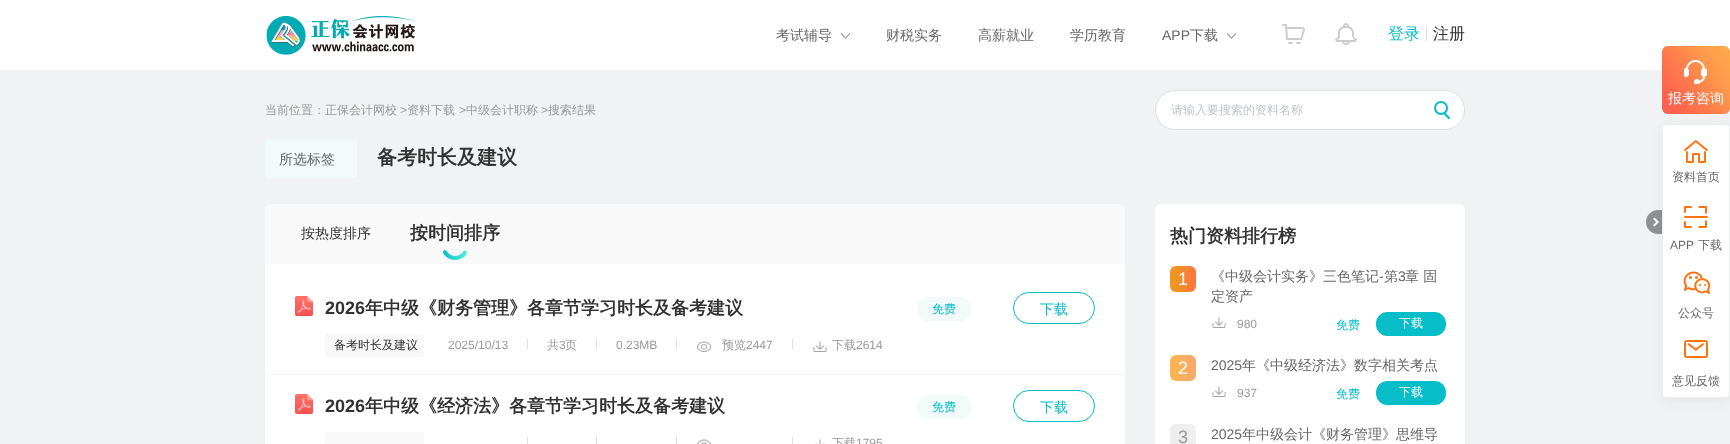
<svg xmlns="http://www.w3.org/2000/svg" width="1730" height="444" viewBox="0 0 1730 444">
  <defs>
    <linearGradient id="g1" gradientUnits="userSpaceOnUse" x1="1196" y1="279" x2="1170" y2="279"><stop offset="0" stop-color="rgb(252,117,64)"/><stop offset="0.81" stop-color="rgb(239,149,32)"/></linearGradient>
    <linearGradient id="g2" gradientUnits="userSpaceOnUse" x1="1196" y1="368" x2="1170" y2="368"><stop offset="0" stop-color="rgb(247,168,110)"/><stop offset="0.81" stop-color="rgb(255,179,81)"/></linearGradient>
    <linearGradient id="g3" gradientUnits="userSpaceOnUse" x1="1196" y1="437" x2="1170" y2="437"><stop offset="0" stop-color="rgb(239,240,242)"/><stop offset="0.81" stop-color="rgb(238,236,236)"/></linearGradient>
  </defs>
  <rect width="100%" height="100%" fill="rgb(240,242,243)"/>
  <rect x="0" y="0" width="1730" height="70" fill="rgb(255,255,255)"/>
  <image x="266" y="16" width="149" height="39" href="pic1.png"/>
  <text x="776" y="40" font-family="WenQuanYi Zen Hei" font-size="14" font-weight="500" fill="rgb(102,102,102)">考试辅导</text>
  <image x="841" y="33" width="9" height="6" href="pic2.png"/>
  <g font-family="WenQuanYi Zen Hei" font-size="14" font-weight="500" fill="rgb(102,102,102)">
    <text x="886" y="40">财税实务</text>
    <text x="978" y="40">高薪就业</text>
    <text x="1070" y="40">学历教育</text>
  </g>
  <text x="1162" y="40" font-family="Liberation Sans" font-size="14" fill="rgb(102,102,102)">APP</text>
  <text x="1190" y="40" font-family="WenQuanYi Zen Hei" font-size="14" font-weight="500" fill="rgb(102,102,102)">下载</text>
  <image x="1227" y="33" width="9" height="6" href="pic2.png"/>
  <image x="1282" y="24" width="23" height="20" href="pic3.png"/>
  <image x="1335" y="23" width="22" height="22" href="pic4.png"/>
  <text x="1388" y="39" font-family="WenQuanYi Zen Hei" font-size="16" font-weight="500" fill="rgb(7,189,199)">登录</text>
  <rect x="1426" y="27" width="1" height="14" fill="rgb(220,220,220)"/>
  <text x="1433" y="39" font-family="WenQuanYi Zen Hei" font-size="16" font-weight="500" fill="rgb(51,51,51)">注册</text>
  <text x="265" y="114" font-family="WenQuanYi Zen Hei" font-size="12" font-weight="500" fill="rgb(153,153,153)">当前位置：正保会计网校</text>
  <text x="400" y="114" font-family="Liberation Sans" font-size="12" fill="rgb(153,153,153)">&gt;</text>
  <text x="407" y="114" font-family="WenQuanYi Zen Hei" font-size="12" font-weight="500" fill="rgb(153,153,153)">资料下载</text>
  <text x="459" y="114" font-family="Liberation Sans" font-size="12" fill="rgb(153,153,153)">&gt;</text>
  <text x="466" y="114" font-family="WenQuanYi Zen Hei" font-size="12" font-weight="500" fill="rgb(153,153,153)">中级会计职称</text>
  <text x="541" y="114" font-family="Liberation Sans" font-size="12" fill="rgb(153,153,153)">&gt;</text>
  <text x="548" y="114" font-family="WenQuanYi Zen Hei" font-size="12" font-weight="500" fill="rgb(153,153,153)">搜索结果</text>
  <rect x="1155.5" y="90.5" width="309" height="39" rx="19.5" fill="rgb(255,255,255)" stroke="rgb(220,223,230)"/>
  <text x="1171" y="114" font-family="WenQuanYi Zen Hei" font-size="12" font-weight="500" fill="rgb(192,196,204)">请输入要搜索的资料名称</text>
  <circle cx="1441" cy="108" r="6" fill="none" stroke="rgb(7,189,199)" stroke-width="2"/>
  <path d="M1444.5 113C1445.5 112 1447 114.5 1448 115.5C1448.5 116 1451 118 1449.5 119C1448.5 120 1447 117.5 1446 116.5C1445.5 116 1443 114 1444.5 113Z" fill="rgb(7,189,199)"/>
  <rect x="265" y="140" width="92" height="38" rx="3" fill="rgb(242,250,250)"/>
  <text x="279" y="164" font-family="WenQuanYi Zen Hei" font-size="14" font-weight="500" fill="rgb(102,102,102)">所选标签</text>
  <text x="377" y="164" font-family="WenQuanYi Zen Hei" font-size="20" font-weight="bold" fill="rgb(51,51,51)">备考时长及建议</text>
  <path d="M271 204H1119C1122.5 204 1125 206.5 1125 210V264H265V210C265 206.5 267.5 204 271 204Z" fill="rgb(249,249,249)"/>
  <text x="301" y="238" font-family="WenQuanYi Zen Hei" font-size="14" font-weight="500" fill="rgb(51,51,51)">按热度排序</text>
  <text x="410" y="239" font-family="WenQuanYi Zen Hei" font-size="18" font-weight="bold" fill="rgb(51,51,51)">按时间排序</text>
  <image x="443" y="250" width="24" height="10" href="pic5.png"/>
  <rect x="265" y="264" width="860" height="180" fill="rgb(255,255,255)"/>
  <rect x="265" y="374" width="860" height="1" fill="rgb(246,246,246)"/>
  <image x="295" y="296" width="18" height="20" href="pic6.png"/>
  <text x="325" y="314" font-family="Liberation Sans" font-size="18" font-weight="bold" fill="rgb(51,51,51)">2026</text>
  <text x="365" y="314" font-family="WenQuanYi Zen Hei" font-size="18" font-weight="bold" fill="rgb(51,51,51)">年中级《财务管理》各章节学习时长及备考建议</text>
  <rect x="917" y="297" width="55" height="24" rx="12" fill="rgb(242,250,250)"/>
  <text x="932" y="313" font-family="WenQuanYi Zen Hei" font-size="12" font-weight="500" fill="rgb(7,189,199)">免费</text>
  <rect x="1013.5" y="292.5" width="81" height="31" rx="15.5" fill="none" stroke="rgb(7,189,199)"/>
  <text x="1040" y="314" font-family="WenQuanYi Zen Hei" font-size="14" font-weight="500" fill="rgb(7,189,199)">下载</text>
  <rect x="325" y="334" width="99" height="23" rx="2" fill="rgb(248,248,248)"/>
  <text x="334" y="349" font-family="WenQuanYi Zen Hei" font-size="12" font-weight="500" fill="rgb(51,51,51)">备考时长及建议</text>
  <text x="448" y="349" font-family="Liberation Sans" font-size="12" fill="rgb(153,153,153)">2025/10/13</text>
  <rect x="527" y="339" width="1" height="10" fill="rgb(223,223,223)"/>
  <text x="547" y="349" font-family="WenQuanYi Zen Hei" font-size="12" font-weight="500" fill="rgb(153,153,153)">共</text>
  <text x="559" y="349" font-family="Liberation Sans" font-size="12" fill="rgb(153,153,153)">3</text>
  <text x="565" y="349" font-family="WenQuanYi Zen Hei" font-size="12" font-weight="500" fill="rgb(153,153,153)">页</text>
  <rect x="596" y="339" width="1" height="10" fill="rgb(223,223,223)"/>
  <text x="616" y="349" font-family="Liberation Sans" font-size="12" fill="rgb(153,153,153)">0.23MB</text>
  <rect x="676" y="339" width="1" height="10" fill="rgb(223,223,223)"/>
  <image x="696" y="341" width="16" height="11" href="pic7.png"/>
  <text x="722" y="349" font-family="WenQuanYi Zen Hei" font-size="12" font-weight="500" fill="rgb(153,153,153)">预览</text>
  <text x="746" y="349" font-family="Liberation Sans" font-size="12" fill="rgb(153,153,153)">2447</text>
  <rect x="792" y="339" width="1" height="10" fill="rgb(223,223,223)"/>
  <image x="813" y="341" width="14" height="11" href="pic8.png"/>
  <text x="832" y="349" font-family="WenQuanYi Zen Hei" font-size="12" font-weight="500" fill="rgb(153,153,153)">下载</text>
  <text x="856" y="349" font-family="Liberation Sans" font-size="12" fill="rgb(153,153,153)">2614</text>
  <image x="295" y="394" width="18" height="20" href="pic6.png"/>
  <text x="325" y="412" font-family="Liberation Sans" font-size="18" font-weight="bold" fill="rgb(51,51,51)">2026</text>
  <text x="365" y="412" font-family="WenQuanYi Zen Hei" font-size="18" font-weight="bold" fill="rgb(51,51,51)">年中级《经济法》各章节学习时长及备考建议</text>
  <rect x="917" y="395" width="55" height="24" rx="12" fill="rgb(242,250,250)"/>
  <text x="932" y="411" font-family="WenQuanYi Zen Hei" font-size="12" font-weight="500" fill="rgb(7,189,199)">免费</text>
  <rect x="1013.5" y="390.5" width="81" height="31" rx="15.5" fill="none" stroke="rgb(7,189,199)"/>
  <text x="1040" y="412" font-family="WenQuanYi Zen Hei" font-size="14" font-weight="500" fill="rgb(7,189,199)">下载</text>
  <rect x="325" y="432" width="99" height="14" rx="2" fill="rgb(248,248,248)"/>
  <rect x="527" y="437" width="1" height="7" fill="rgb(223,223,223)"/>
  <rect x="596" y="437" width="1" height="7" fill="rgb(223,223,223)"/>
  <rect x="676" y="437" width="1" height="7" fill="rgb(223,223,223)"/>
  <image x="697" y="439" width="14" height="5" href="pic9.png"/>
  <rect x="792" y="437" width="1" height="7" fill="rgb(223,223,223)"/>
  <image x="815" y="439" width="10" height="5" href="pic10.png"/>
  <text x="832" y="447" font-family="WenQuanYi Zen Hei" font-size="12" font-weight="500" fill="rgb(153,153,153)">下载</text>
  <text x="856" y="447" font-family="Liberation Sans" font-size="12" fill="rgb(153,153,153)">1795</text>
  <rect x="1155" y="204" width="310" height="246" rx="6" fill="rgb(255,255,255)"/>
  <text x="1170" y="242" font-family="WenQuanYi Zen Hei" font-size="18" font-weight="bold" fill="rgb(51,51,51)">热门资料排行榜</text>
  <rect x="1170" y="266" width="26" height="26" rx="6" fill="url(#g1)"/>
  <text x="1178" y="285" font-family="Liberation Sans" font-size="18" fill="rgb(255,255,255)">1</text>
  <text x="1211" y="281" font-family="WenQuanYi Zen Hei" font-size="14" font-weight="500" fill="rgb(102,102,102)">《中级会计实务》三色笔记</text>
  <text x="1379" y="281" font-family="Liberation Sans" font-size="14" fill="rgb(102,102,102)">-</text>
  <text x="1384" y="281" font-family="WenQuanYi Zen Hei" font-size="14" font-weight="500" fill="rgb(102,102,102)">第</text>
  <text x="1398" y="281" font-family="Liberation Sans" font-size="14" fill="rgb(102,102,102)">3</text>
  <g font-family="WenQuanYi Zen Hei" font-size="14" font-weight="500" fill="rgb(102,102,102)">
    <text x="1405" y="281">章 固</text>
    <text x="1211" y="301">定资产</text>
  </g>
  <image x="1212" y="317" width="14" height="11" href="pic8.png"/>
  <text x="1237" y="328" font-family="Liberation Sans" font-size="12" fill="rgb(153,153,153)">980</text>
  <text x="1336" y="329" font-family="WenQuanYi Zen Hei" font-size="12" font-weight="500" fill="rgb(7,189,199)">免费</text>
  <rect x="1376.5" y="312.5" width="69" height="23" rx="10.5" fill="rgb(7,189,199)" stroke="rgb(7,189,199)"/>
  <text x="1399" y="327" font-family="WenQuanYi Zen Hei" font-size="12" font-weight="500" fill="rgb(255,255,255)">下载</text>
  <rect x="1170" y="355" width="26" height="26" rx="6" fill="url(#g2)"/>
  <text x="1178" y="374" font-family="Liberation Sans" font-size="18" fill="rgb(255,255,255)">2</text>
  <text x="1211" y="370" font-family="Liberation Sans" font-size="14" fill="rgb(102,102,102)">2025</text>
  <text x="1242" y="370" font-family="WenQuanYi Zen Hei" font-size="14" font-weight="500" fill="rgb(102,102,102)">年《中级经济法》数字相关考点</text>
  <image x="1212" y="386" width="14" height="11" href="pic8.png"/>
  <text x="1237" y="397" font-family="Liberation Sans" font-size="12" fill="rgb(153,153,153)">937</text>
  <text x="1336" y="398" font-family="WenQuanYi Zen Hei" font-size="12" font-weight="500" fill="rgb(7,189,199)">免费</text>
  <rect x="1376.5" y="381.5" width="69" height="23" rx="10.5" fill="rgb(7,189,199)" stroke="rgb(7,189,199)"/>
  <text x="1399" y="396" font-family="WenQuanYi Zen Hei" font-size="12" font-weight="500" fill="rgb(255,255,255)">下载</text>
  <rect x="1170" y="424" width="26" height="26" rx="6" fill="url(#g3)"/>
  <text x="1178" y="443" font-family="Liberation Sans" font-size="18" fill="rgb(153,153,153)">3</text>
  <text x="1211" y="439" font-family="Liberation Sans" font-size="14" fill="rgb(102,102,102)">2025</text>
  <text x="1242" y="439" font-family="WenQuanYi Zen Hei" font-size="14" font-weight="500" fill="rgb(102,102,102)">年中级会计《财务管理》思维导</text>
  <rect x="1662" y="127" width="68" height="274" rx="4" fill="rgba(217,217,217,0.5)" filter="blur(5.5px)"/>
  <image x="1662" y="46" width="68" height="68" href="pic11.png"/>
  <image x="1684" y="58" width="24" height="26" href="pic12.png"/>
  <text x="1668" y="103" font-family="WenQuanYi Zen Hei" font-size="14" font-weight="500" fill="rgb(255,255,255)">报考咨询</text>
  <image x="1646" y="210" width="16" height="24" href="pic13.png"/>
  <rect x="1662.5" y="124.5" width="67" height="273" rx="3.5" fill="rgb(255,255,255)" stroke="rgb(236,237,238)"/>
  <image x="1684" y="140" width="24" height="23" href="pic14.png"/>
  <text x="1672" y="181" font-family="WenQuanYi Zen Hei" font-size="12" font-weight="500" fill="rgb(102,102,102)">资料首页</text>
  <image x="1684" y="206" width="24" height="22" href="pic15.png"/>
  <text x="1670" y="249" font-family="Liberation Sans" font-size="12" fill="rgb(102,102,102)">APP</text>
  <text x="1698" y="249" font-family="WenQuanYi Zen Hei" font-size="12" font-weight="500" fill="rgb(102,102,102)">下载</text>
  <image x="1683" y="271" width="27" height="23" href="pic16.png"/>
  <text x="1678" y="317" font-family="WenQuanYi Zen Hei" font-size="12" font-weight="500" fill="rgb(102,102,102)">公众号</text>
  <image x="1684" y="340" width="24" height="18" href="pic17.png"/>
  <text x="1672" y="385" font-family="WenQuanYi Zen Hei" font-size="12" font-weight="500" fill="rgb(102,102,102)">意见反馈</text>
</svg>
